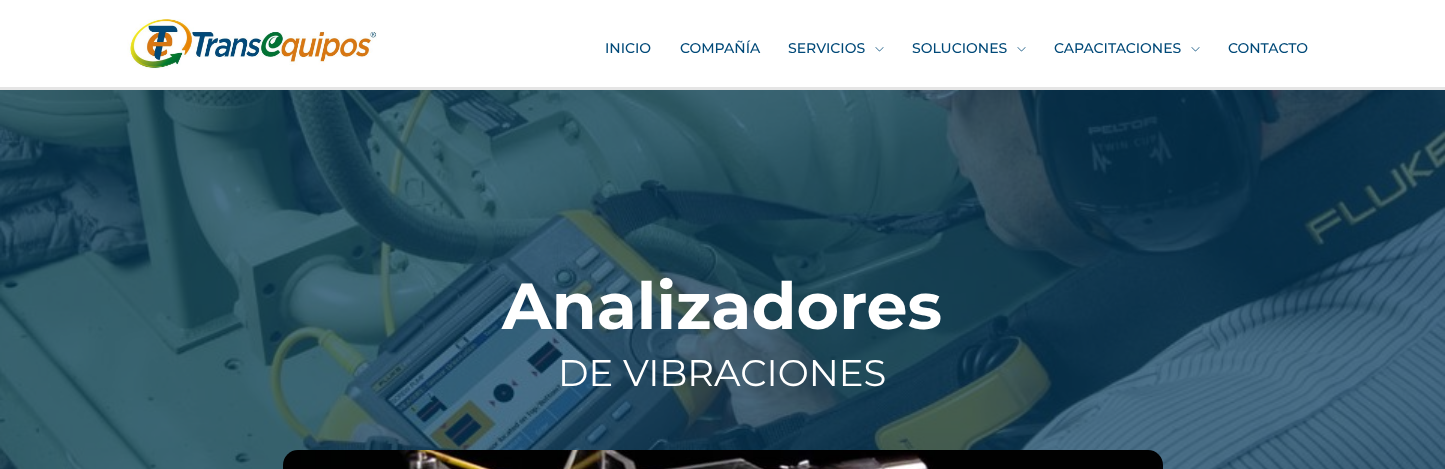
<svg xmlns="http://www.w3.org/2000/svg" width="1445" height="469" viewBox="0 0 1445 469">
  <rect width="100%" height="100%" fill="rgb(255,255,255)"/>
  <rect x="0" y="87" width="1445" height="3" fill="rgb(229,229,229)"/>
  <image x="127" y="19" width="250" height="50" href="pic1.png"/>
  <g font-family="Montserrat" font-size="14" font-weight="500" fill="rgb(0,73,120)">
    <text x="605" y="53">INICIO</text>
    <text x="680" y="53">COMPAÑÍA</text>
    <text x="788" y="53">SERVICIOS</text>
  </g>
  <image x="875" y="47" width="9" height="5" href="pic2.png"/>
  <text x="912" y="53" font-family="Montserrat" font-size="14" font-weight="500" fill="rgb(0,73,120)">SOLUCIONES</text>
  <image x="1017" y="47" width="9" height="5" href="pic2.png"/>
  <text x="1054" y="53" font-family="Montserrat" font-size="14" font-weight="500" fill="rgb(0,73,120)">CAPACITACIONES</text>
  <image x="1191" y="47" width="9" height="5" href="pic2.png"/>
  <text x="1228" y="53" font-family="Montserrat" font-size="14" font-weight="500" fill="rgb(0,73,120)">CONTACTO</text>
  <image x="0" y="90" width="1445" height="379" href="pic3.png"/>
  <text x="502" y="329" font-family="Montserrat" font-size="65" font-weight="bold" fill="rgb(255,255,255)">Analizadores</text>
  <text x="558" y="386" font-family="Montserrat" font-size="37" fill="rgb(255,255,255)">DE VIBRACIONES</text>
  <image x="283" y="450" width="880" height="19" href="pic4.png"/>
</svg>
